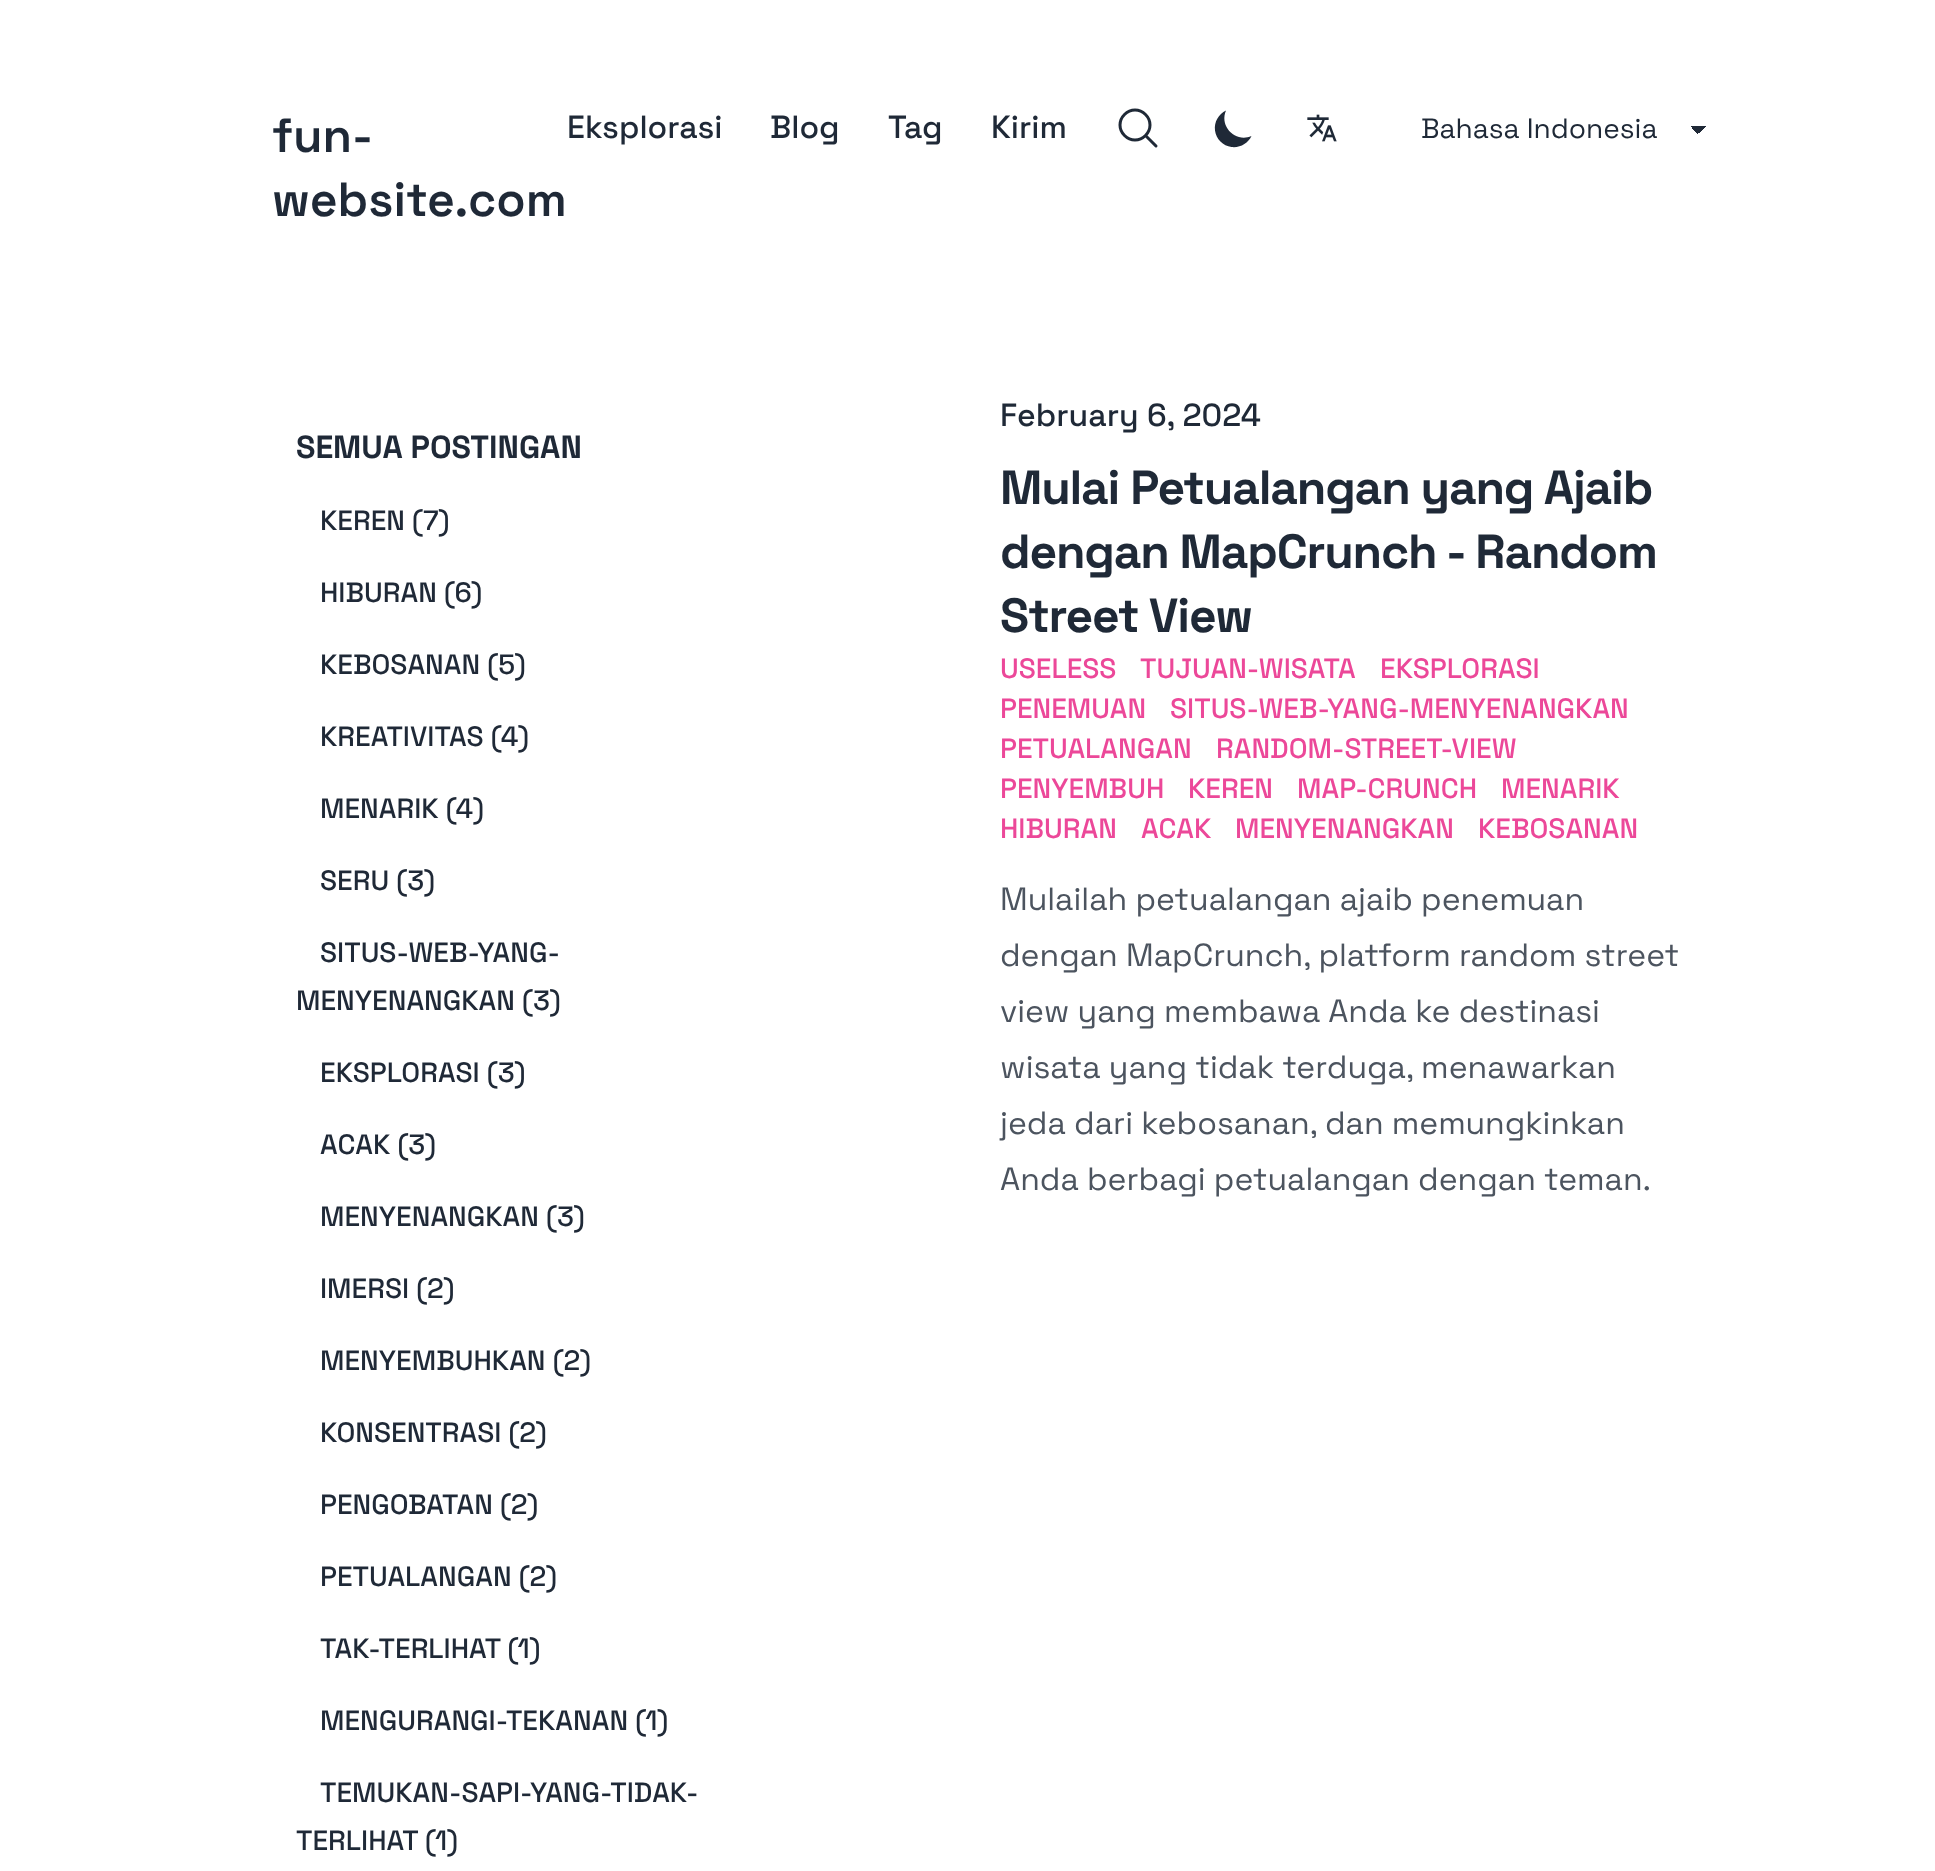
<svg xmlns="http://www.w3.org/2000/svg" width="1935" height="1871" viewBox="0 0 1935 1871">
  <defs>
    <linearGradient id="g1" gradientUnits="userSpaceOnUse" x1="1698" y1="126" x2="1706" y2="134"><stop offset="0.5" stop-color="rgb(31,41,55)"/><stop offset="0.5" stop-color="rgb(255,255,255)"/></linearGradient>
    <linearGradient id="g2" gradientUnits="userSpaceOnUse" x1="1690" y1="134" x2="1698" y2="126"><stop offset="0.5" stop-color="rgb(255,255,255)"/><stop offset="0.5" stop-color="rgb(31,41,55)"/></linearGradient>
  </defs>
  <rect width="100%" height="100%" fill="rgb(255,255,255)"/>
  <g font-family="Space Grotesk" font-size="48" font-weight="600" fill="rgb(31,41,55)">
    <text>
      <tspan x="272" y="152">fun-</tspan>
      <tspan x="272" y="216">website.com</tspan>
    </text>
  </g>
  <g font-family="Space Grotesk" font-size="32" font-weight="500" fill="rgb(31,41,55)">
    <text x="567" y="138">Eksplorasi</text>
    <text x="770" y="138">Blog</text>
    <text x="888" y="138">Tag</text>
    <text x="991" y="138">Kirim</text>
  </g>
  <path d="M1156 146L1145.5 135.5M1145.5 135.5C1151.5 129.5 1151.5 120.5 1145.5 114.5C1139.5 108.5 1130.5 108.5 1124.5 114.5C1118.5 120.5 1118.5 129.5 1124.5 135.5C1130.5 141.5 1139.5 141.5 1145.5 135.5Z" fill="none" stroke="rgb(31,41,55)" stroke-width="3" stroke-linecap="round" stroke-linejoin="round"/>
  <path d="M1251.5 136C1235.5 143 1219 126.5 1226 110.5C1218.5 114 1214 122 1215 130.5C1216 139 1223 146 1231.5 147C1240 148 1248 143.5 1251.5 136Z" fill="rgb(31,41,55)"/>
  <image x="1307" y="114" width="30" height="28" href="pic1.png"/>
  <rect x="1698" y="126" width="8" height="7" fill="url(#g1)"/>
  <rect x="1690" y="126" width="8" height="8" fill="url(#g2)"/>
  <text x="1421" y="138" font-family="Space Grotesk" font-size="28" fill="rgb(31,41,55)">Bahasa Indonesia</text>
  <text x="296" y="458" font-family="Space Grotesk" font-size="32" font-weight="bold" fill="rgb(31,41,55)">SEMUA POSTINGAN</text>
  <g font-family="Space Grotesk" font-size="28" font-weight="500" fill="rgb(31,41,55)">
    <text x="320" y="530">KEREN (7)</text>
    <text x="320" y="602">HIBURAN (6)</text>
    <text x="320" y="674">KEBOSANAN (5)</text>
    <text x="320" y="746">KREATIVITAS (4)</text>
    <text x="320" y="818">MENARIK (4)</text>
    <text x="320" y="890">SERU (3)</text>
    <text x="320" y="962">SITUS-WEB-YANG-</text>
    <text x="296" y="1010">MENYENANGKAN (3)</text>
    <text x="320" y="1082">EKSPLORASI (3)</text>
    <text x="320" y="1154">ACAK (3)</text>
    <text x="320" y="1226">MENYENANGKAN (3)</text>
    <text x="320" y="1298">IMERSI (2)</text>
    <text x="320" y="1370">MENYEMBUHKAN (2)</text>
    <text x="320" y="1442">KONSENTRASI (2)</text>
    <text x="320" y="1514">PENGOBATAN (2)</text>
    <text x="320" y="1586">PETUALANGAN (2)</text>
    <text x="320" y="1658">TAK-TERLIHAT (1)</text>
    <text x="320" y="1730">MENGURANGI-TEKANAN (1)</text>
    <text x="320" y="1802">TEMUKAN-SAPI-YANG-TIDAK-</text>
    <text x="296" y="1850">TERLIHAT (1)</text>
  </g>
  <text x="1000" y="426" font-family="Space Grotesk" font-size="32" font-weight="500" fill="rgb(31,41,55)">February 6, 2024</text>
  <g font-family="Space Grotesk" font-size="48" font-weight="bold" letter-spacing="-1.2" fill="rgb(31,41,55)">
    <text>
      <tspan x="1000" y="504">Mulai Petualangan yang Ajaib</tspan>
      <tspan x="1000" y="568">dengan MapCrunch - Random</tspan>
      <tspan x="1000" y="632">Street View</tspan>
    </text>
  </g>
  <g font-family="Space Grotesk" font-size="28" font-weight="500" fill="rgb(236,72,153)">
    <text x="1000" y="678">USELESS</text>
    <text x="1140" y="678">TUJUAN-WISATA</text>
    <text x="1380" y="678">EKSPLORASI</text>
    <text x="1000" y="718">PENEMUAN</text>
    <text x="1170" y="718">SITUS-WEB-YANG-MENYENANGKAN</text>
    <text x="1000" y="758">PETUALANGAN</text>
    <text x="1216" y="758">RANDOM-STREET-VIEW</text>
    <text x="1000" y="798">PENYEMBUH</text>
    <text x="1188" y="798">KEREN</text>
    <text x="1297" y="798">MAP-CRUNCH</text>
    <text x="1501" y="798">MENARIK</text>
    <text x="1000" y="838">HIBURAN</text>
    <text x="1141" y="838">ACAK</text>
    <text x="1235" y="838">MENYENANGKAN</text>
    <text x="1478" y="838">KEBOSANAN</text>
  </g>
  <g font-family="Space Grotesk" font-size="32" fill="rgb(76,84,95)">
    <text>
      <tspan x="1000" y="910">Mulailah petualangan ajaib penemuan</tspan>
      <tspan x="1000" y="966">dengan MapCrunch, platform random street</tspan>
      <tspan x="1000" y="1022">view yang membawa Anda ke destinasi</tspan>
      <tspan x="1000" y="1078">wisata yang tidak terduga, menawarkan</tspan>
      <tspan x="1000" y="1134">jeda dari kebosanan, dan memungkinkan</tspan>
      <tspan x="1000" y="1190">Anda berbagi petualangan dengan teman.</tspan>
    </text>
  </g>
</svg>
